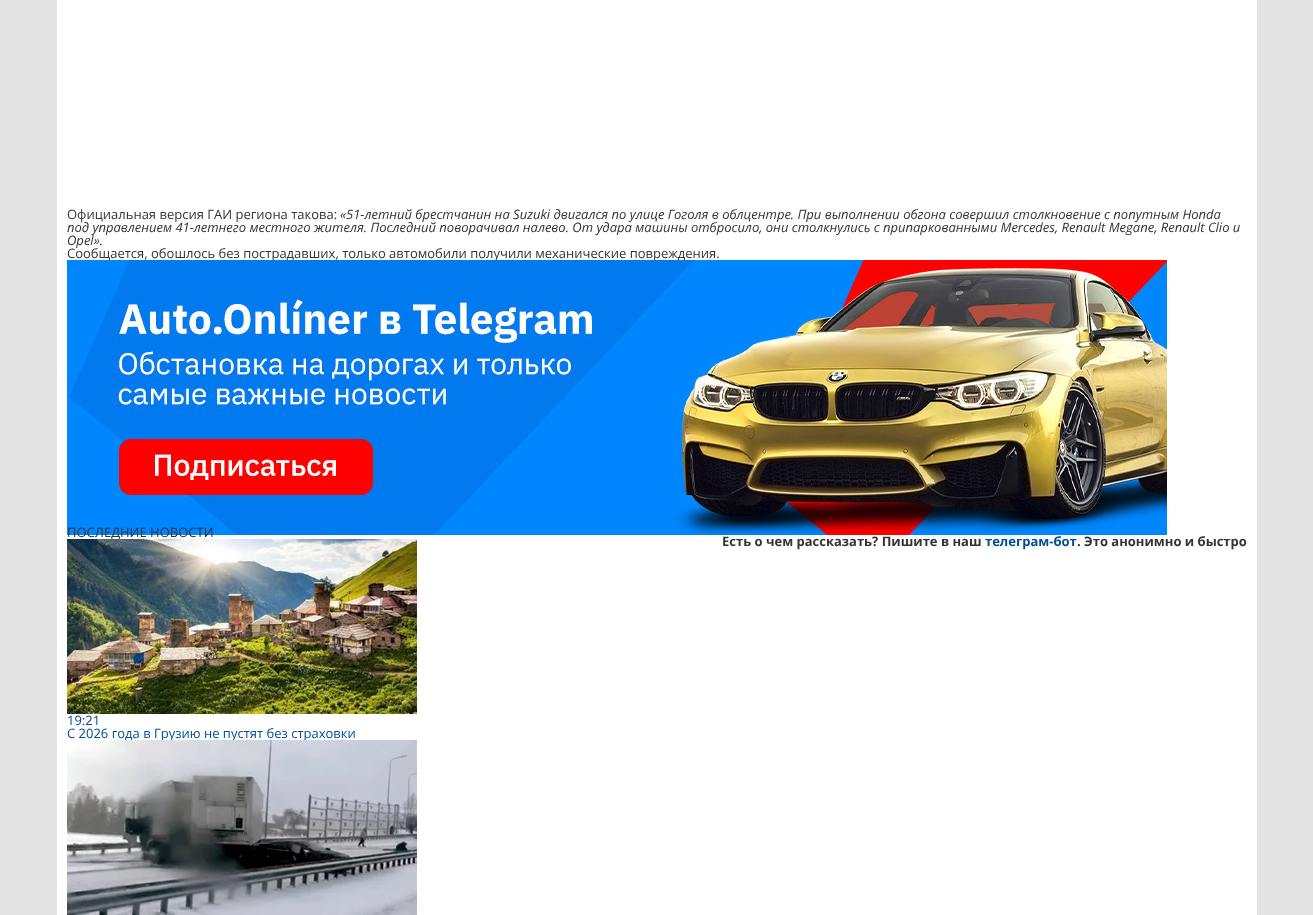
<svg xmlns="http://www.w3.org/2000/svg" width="1313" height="915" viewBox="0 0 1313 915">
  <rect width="100%" height="100%" fill="rgb(227,227,227)"/>
  <rect x="57" y="0" width="1200" height="915" fill="rgb(255,255,255)"/>
  <text x="67" y="219" font-family="Open Sans" font-size="13" fill="rgb(51,51,51)">Официальная версия ГАИ региона такова:</text>
  <g font-family="Open Sans" font-size="13" font-style="italic" fill="rgb(51,51,51)">
    <text x="340" y="219">«51-летний брестчанин на Suzuki двигался по улице Гоголя в облцентре. При выполнении обгона совершил столкновение с попутным Honda</text>
    <text>
      <tspan x="67" y="232">под управлением 41-летнего местного жителя. Последний поворачивал налево. От удара машины отбросило, они столкнулись с припаркованными Mercedes, Renault Megane, Renault Clio и</tspan>
      <tspan x="67" y="245">Opel».</tspan>
    </text>
  </g>
  <text x="67" y="258" font-family="Open Sans" font-size="13" fill="rgb(51,51,51)">Сообщается, обошлось без пострадавших, только автомобили получили механические повреждения.</text>
  <image x="67" y="260" width="1100" height="275" href="pic1.png"/>
  <text x="722" y="546" font-family="Open Sans" font-size="13" font-weight="bold" fill="rgb(51,51,51)">Есть о чем рассказать? Пишите в наш</text>
  <text x="985" y="546" font-family="Open Sans" font-size="13" font-weight="bold" fill="rgb(0,77,153)">телеграм-бот</text>
  <text x="1077" y="546" font-family="Open Sans" font-size="13" font-weight="bold" fill="rgb(51,51,51)">. Это анонимно и быстро</text>
  <text x="67" y="537" font-family="Open Sans" font-size="13" fill="rgb(51,51,51)">ПОСЛЕДНИЕ НОВОСТИ</text>
  <image x="67" y="539" width="350" height="175" href="pic2.png"/>
  <g font-family="Open Sans" font-size="13" fill="rgb(0,77,153)">
    <text>
      <tspan x="67" y="725">19:21</tspan>
      <tspan x="67" y="738">С 2026 года в Грузию не пустят без страховки</tspan>
    </text>
  </g>
  <image x="67" y="740" width="350" height="175" href="pic3.png"/>
</svg>
